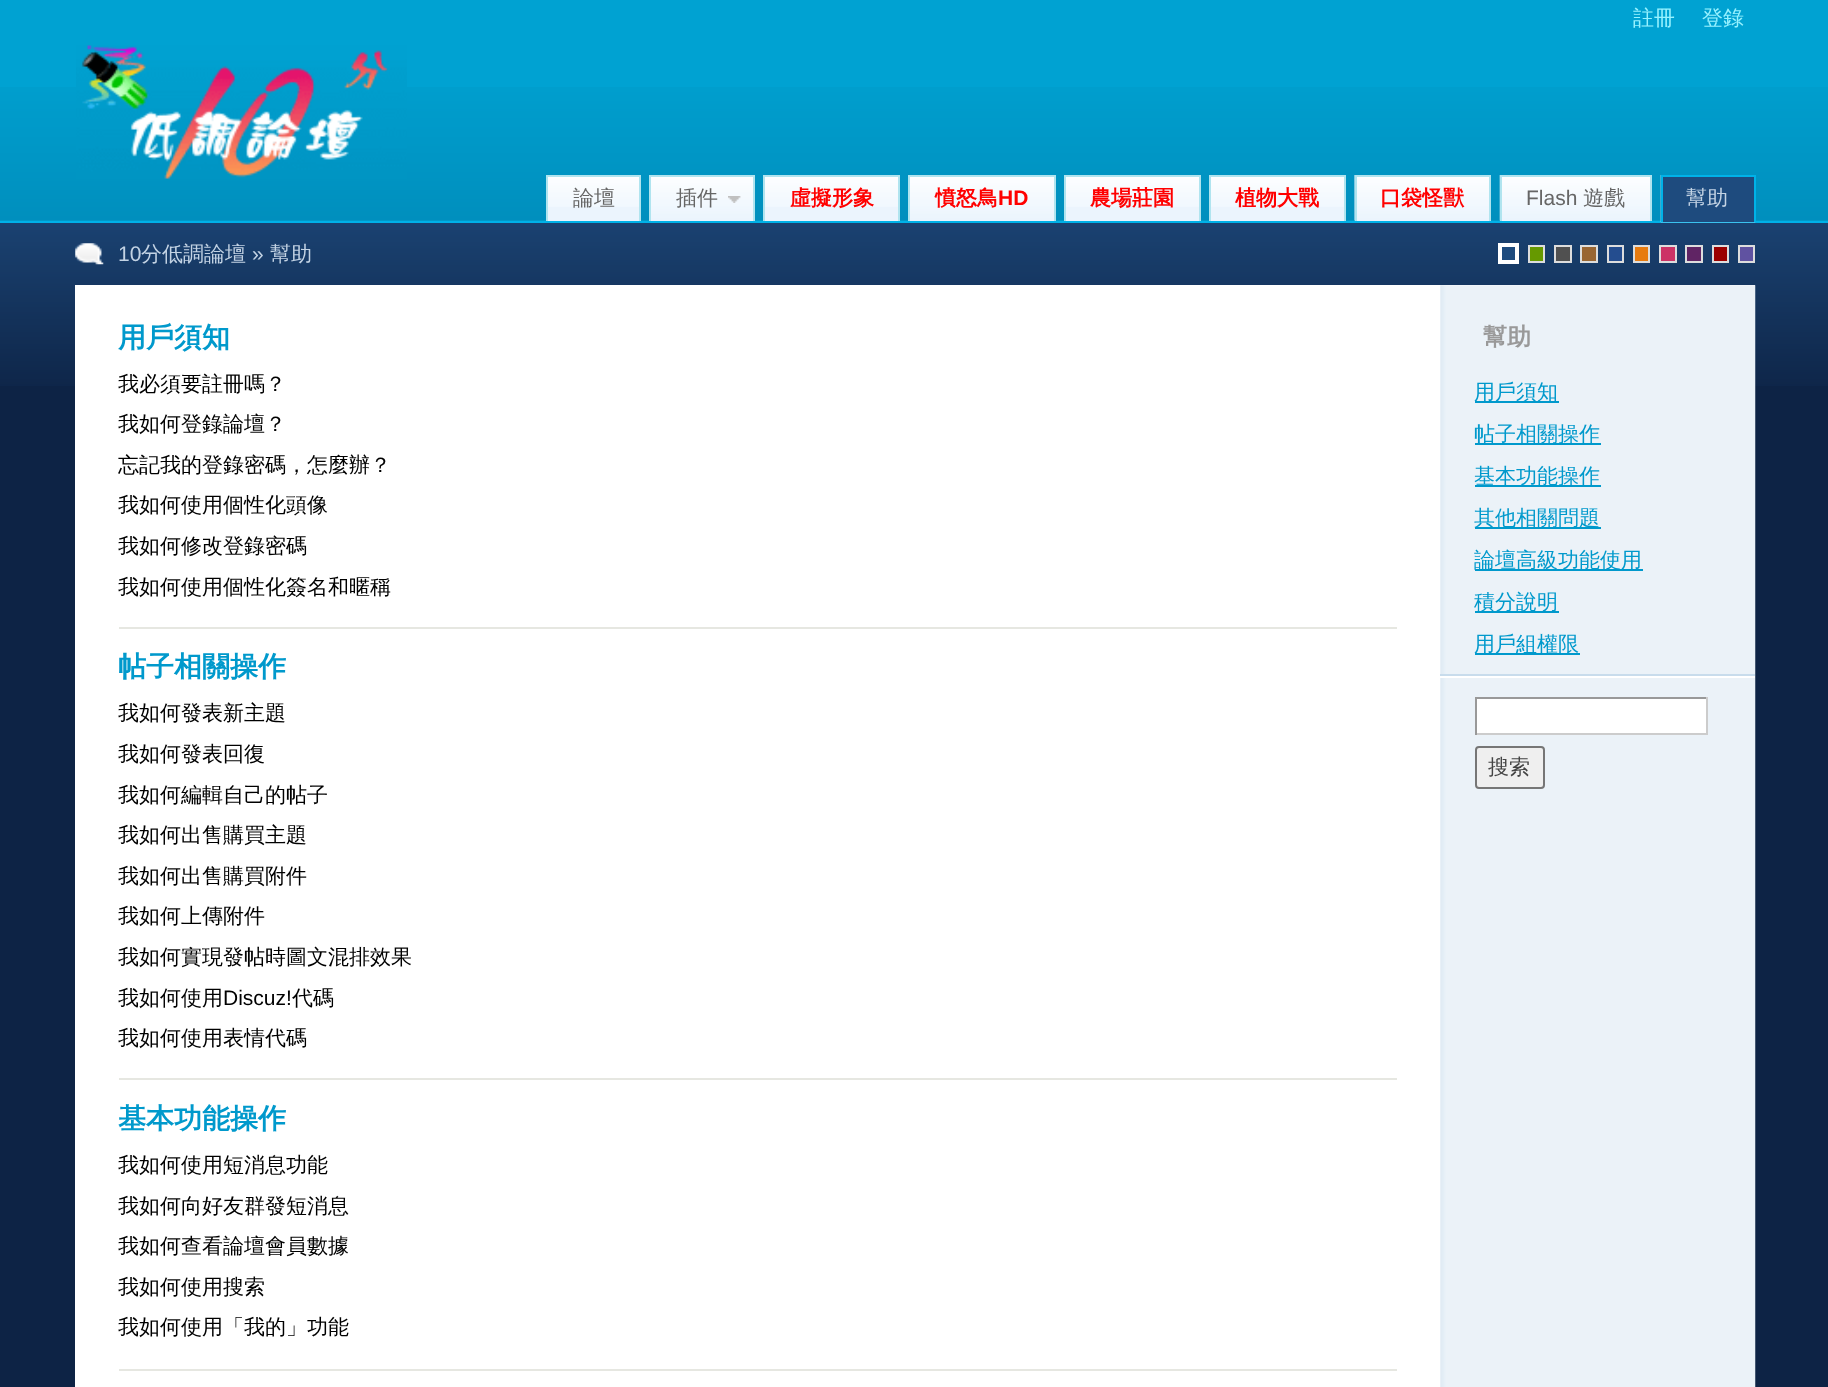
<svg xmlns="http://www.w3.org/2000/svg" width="1828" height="1387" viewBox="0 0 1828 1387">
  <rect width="100%" height="100%" fill="rgb(13,35,69)"/>
  <image x="0" y="223" width="1828" height="163" href="pic1.png"/>
  <rect x="0" y="0" width="1828" height="221" fill="rgb(0,162,210)"/>
  <image x="0" y="87" width="1828" height="134" href="pic2.png"/>
  <rect x="0" y="221" width="1828" height="2" fill="rgb(0,178,232)"/>
  <g font-family="WenQuanYi Zen Hei" font-size="21" font-weight="500" fill="rgb(151,242,255)">
    <text x="1633" y="25">註冊</text>
    <text x="1702" y="25">登錄</text>
  </g>
  <image x="76" y="45" width="331" height="134" href="pic3.png"/>
  <rect x="548" y="207" width="91" height="14" fill="rgb(235,244,253)"/>
  <image x="548" y="177" width="91" height="30" href="pic4.png"/>
  <rect x="546" y="175" width="95" height="2" fill="rgb(176,228,239)"/>
  <rect x="639" y="175" width="2" height="46" fill="rgb(176,228,239)"/>
  <rect x="546" y="175" width="2" height="46" fill="rgb(176,228,239)"/>
  <text x="573" y="205" font-family="WenQuanYi Zen Hei" font-size="21" font-weight="500" fill="rgb(102,102,102)">論壇</text>
  <rect x="651" y="220" width="102" height="1" fill="rgb(235,244,253)"/>
  <image x="651" y="177" width="102" height="44" href="pic5.png"/>
  <image x="728" y="196" width="13" height="7" href="pic6.png"/>
  <rect x="649" y="175" width="105" height="2" fill="rgb(176,228,239)"/>
  <rect x="753" y="175" width="2" height="46" fill="rgb(176,228,239)"/>
  <rect x="649" y="175" width="2" height="46" fill="rgb(176,228,239)"/>
  <text x="676" y="205" font-family="WenQuanYi Zen Hei" font-size="21" font-weight="500" fill="rgb(102,102,102)">插件</text>
  <rect x="765" y="207" width="133" height="14" fill="rgb(235,244,253)"/>
  <image x="765" y="177" width="133" height="30" href="pic7.png"/>
  <rect x="763" y="175" width="137" height="2" fill="rgb(176,228,239)"/>
  <rect x="898" y="175" width="2" height="46" fill="rgb(176,228,239)"/>
  <rect x="763" y="175" width="2" height="46" fill="rgb(176,228,239)"/>
  <text x="790" y="205" font-family="WenQuanYi Zen Hei" font-size="21" font-weight="bold" fill="rgb(255,0,0)">虛擬形象</text>
  <rect x="910" y="220" width="144" height="1" fill="rgb(235,244,253)"/>
  <image x="910" y="177" width="144" height="44" href="pic8.png"/>
  <rect x="908" y="175" width="147" height="2" fill="rgb(176,228,239)"/>
  <rect x="1054" y="175" width="2" height="46" fill="rgb(176,228,239)"/>
  <rect x="908" y="175" width="2" height="46" fill="rgb(176,228,239)"/>
  <text x="935" y="205" font-family="WenQuanYi Zen Hei" font-size="21" font-weight="bold" fill="rgb(255,0,0)">憤怒鳥</text>
  <text x="998" y="205" font-family="Liberation Sans" font-size="21" font-weight="bold" fill="rgb(255,0,0)">HD</text>
  <rect x="1066" y="207" width="133" height="14" fill="rgb(235,244,253)"/>
  <image x="1066" y="177" width="133" height="30" href="pic7.png"/>
  <rect x="1064" y="175" width="137" height="2" fill="rgb(176,228,239)"/>
  <rect x="1199" y="175" width="2" height="46" fill="rgb(176,228,239)"/>
  <rect x="1064" y="175" width="2" height="46" fill="rgb(176,228,239)"/>
  <text x="1090" y="205" font-family="WenQuanYi Zen Hei" font-size="21" font-weight="bold" fill="rgb(255,0,0)">農場莊園</text>
  <rect x="1211" y="207" width="133" height="14" fill="rgb(235,244,253)"/>
  <image x="1211" y="177" width="133" height="30" href="pic7.png"/>
  <rect x="1209" y="175" width="137" height="2" fill="rgb(176,228,239)"/>
  <rect x="1344" y="175" width="2" height="46" fill="rgb(176,228,239)"/>
  <rect x="1209" y="175" width="2" height="46" fill="rgb(176,228,239)"/>
  <text x="1235" y="205" font-family="WenQuanYi Zen Hei" font-size="21" font-weight="bold" fill="rgb(255,0,0)">植物大戰</text>
  <rect x="1357" y="220" width="132" height="1" fill="rgb(235,244,253)"/>
  <image x="1354" y="175" width="135" height="46" href="pic9.png"/>
  <rect x="1355" y="175" width="136" height="2" fill="rgb(176,228,239)"/>
  <rect x="1489" y="175" width="2" height="46" fill="rgb(176,228,239)"/>
  <rect x="1355" y="175" width="2" height="46" fill="rgb(176,228,239)"/>
  <text x="1380" y="205" font-family="WenQuanYi Zen Hei" font-size="21" font-weight="bold" fill="rgb(255,0,0)">口袋怪獸</text>
  <rect x="1502" y="220" width="148" height="1" fill="rgb(235,244,253)"/>
  <image x="1499" y="175" width="151" height="46" href="pic10.png"/>
  <rect x="1500" y="175" width="152" height="2" fill="rgb(176,228,239)"/>
  <rect x="1650" y="175" width="2" height="46" fill="rgb(176,228,239)"/>
  <rect x="1500" y="175" width="2" height="46" fill="rgb(176,228,239)"/>
  <text x="1526" y="205" font-family="Liberation Sans" font-size="21" fill="rgb(102,102,102)">Flash</text>
  <text x="1583" y="205" font-family="WenQuanYi Zen Hei" font-size="21" font-weight="500" fill="rgb(102,102,102)">遊戲</text>
  <image x="1660" y="175" width="96" height="48" href="pic11.png"/>
  <rect x="1663" y="177" width="91" height="45" fill="rgb(30,75,126)"/>
  <rect x="1661" y="175" width="94" height="2" fill="rgb(0,178,232)"/>
  <rect x="1754" y="175" width="2" height="47" fill="rgb(0,178,232)"/>
  <rect x="1661" y="175" width="2" height="47" fill="rgb(0,178,232)"/>
  <text x="1686" y="205" font-family="WenQuanYi Zen Hei" font-size="21" font-weight="500" fill="rgb(195,211,228)">幫助</text>
  <rect x="1500" y="245" width="17" height="17" fill="rgb(30,75,126)" stroke="rgb(255,255,255)" stroke-width="4"/>
  <rect x="1529" y="246" width="15" height="16" fill="rgb(102,153,0)" stroke="rgb(221,221,221)" stroke-width="2"/>
  <rect x="1555" y="246" width="16" height="16" fill="rgb(80,80,80)" stroke="rgb(221,221,221)" stroke-width="2"/>
  <rect x="1581" y="246" width="16" height="16" fill="rgb(153,102,51)" stroke="rgb(221,221,221)" stroke-width="2"/>
  <rect x="1608" y="246" width="15" height="16" fill="rgb(36,77,143)" stroke="rgb(221,221,221)" stroke-width="2"/>
  <rect x="1634" y="246" width="15" height="16" fill="rgb(231,123,15)" stroke="rgb(221,221,221)" stroke-width="2"/>
  <rect x="1660" y="246" width="16" height="16" fill="rgb(204,51,102)" stroke="rgb(221,221,221)" stroke-width="2"/>
  <rect x="1686" y="246" width="16" height="16" fill="rgb(96,36,100)" stroke="rgb(221,221,221)" stroke-width="2"/>
  <rect x="1713" y="246" width="15" height="16" fill="rgb(155,0,0)" stroke="rgb(221,221,221)" stroke-width="2"/>
  <rect x="1739" y="246" width="15" height="16" fill="rgb(96,82,161)" stroke="rgb(221,221,221)" stroke-width="2"/>
  <image x="75" y="243" width="29" height="22" href="pic12.png"/>
  <text x="118" y="261" font-family="Liberation Sans" font-size="21" fill="rgb(195,211,228)">10</text>
  <text x="141" y="261" font-family="WenQuanYi Zen Hei" font-size="21" font-weight="500" fill="rgb(195,211,228)">分低調論壇</text>
  <text x="252" y="261" font-family="Liberation Sans" font-size="21" fill="rgb(195,211,228)">»</text>
  <text x="270" y="261" font-family="WenQuanYi Zen Hei" font-size="21" font-weight="500" fill="rgb(195,211,228)">幫助</text>
  <rect x="75" y="285" width="1680" height="1102" fill="rgb(255,255,255)"/>
  <image x="1440" y="285" width="316" height="1102" href="pic13.png"/>
  <text x="118" y="347" font-family="WenQuanYi Zen Hei" font-size="28" font-weight="bold" fill="rgb(0,153,204)">用戶須知</text>
  <g font-family="WenQuanYi Zen Hei" font-size="21" font-weight="500" fill="rgb(0,0,0)">
    <text>
      <tspan x="118" y="391">我必須要註冊嗎？</tspan>
      <tspan x="118" y="431">我如何登錄論壇？</tspan>
      <tspan x="118" y="472">忘記我的登錄密碼，怎麼辦？</tspan>
      <tspan x="118" y="512">我如何使用個性化頭像</tspan>
      <tspan x="118" y="553">我如何修改登錄密碼</tspan>
      <tspan x="118" y="594">我如何使用個性化簽名和暱稱</tspan>
    </text>
  </g>
  <rect x="119" y="627" width="1278" height="2" fill="rgb(230,231,225)"/>
  <text x="118" y="676" font-family="WenQuanYi Zen Hei" font-size="28" font-weight="bold" fill="rgb(0,153,204)">帖子相關操作</text>
  <g font-family="WenQuanYi Zen Hei" font-size="21" font-weight="500" fill="rgb(0,0,0)">
    <text>
      <tspan x="118" y="720">我如何發表新主題</tspan>
      <tspan x="118" y="761">我如何發表回復</tspan>
      <tspan x="118" y="802">我如何編輯自己的帖子</tspan>
      <tspan x="118" y="842">我如何出售購買主題</tspan>
      <tspan x="118" y="883">我如何出售購買附件</tspan>
      <tspan x="118" y="923">我如何上傳附件</tspan>
      <tspan x="118" y="964">我如何實現發帖時圖文混排效果</tspan>
      <tspan x="118" y="1005">我如何使用</tspan>
    </text>
  </g>
  <text x="223" y="1005" font-family="Liberation Sans" font-size="21" fill="rgb(0,0,0)">Discuz!</text>
  <g font-family="WenQuanYi Zen Hei" font-size="21" font-weight="500" fill="rgb(0,0,0)">
    <text x="292" y="1005">代碼</text>
    <text x="118" y="1045">我如何使用表情代碼</text>
  </g>
  <rect x="119" y="1078" width="1278" height="2" fill="rgb(230,231,225)"/>
  <text x="118" y="1128" font-family="WenQuanYi Zen Hei" font-size="28" font-weight="bold" fill="rgb(0,153,204)">基本功能操作</text>
  <g font-family="WenQuanYi Zen Hei" font-size="21" font-weight="500" fill="rgb(0,0,0)">
    <text>
      <tspan x="118" y="1172">我如何使用短消息功能</tspan>
      <tspan x="118" y="1213">我如何向好友群發短消息</tspan>
      <tspan x="118" y="1253">我如何查看論壇會員數據</tspan>
      <tspan x="118" y="1294">我如何使用搜索</tspan>
      <tspan x="118" y="1334">我如何使用「我的」功能</tspan>
    </text>
  </g>
  <rect x="119" y="1369" width="1278" height="2" fill="rgb(230,231,225)"/>
  <text x="1483" y="345" font-family="WenQuanYi Zen Hei" font-size="24" font-weight="bold" fill="rgb(153,153,153)">幫助</text>
  <rect x="1475" y="401" width="84" height="2" fill="rgb(0,153,204)"/>
  <text x="1474" y="399" font-family="WenQuanYi Zen Hei" font-size="21" font-weight="500" fill="rgb(0,153,204)">用戶須知</text>
  <rect x="1475" y="443" width="126" height="2" fill="rgb(0,153,204)"/>
  <text x="1474" y="441" font-family="WenQuanYi Zen Hei" font-size="21" font-weight="500" fill="rgb(0,153,204)">帖子相關操作</text>
  <rect x="1475" y="485" width="126" height="2" fill="rgb(0,153,204)"/>
  <text x="1474" y="483" font-family="WenQuanYi Zen Hei" font-size="21" font-weight="500" fill="rgb(0,153,204)">基本功能操作</text>
  <rect x="1475" y="527" width="126" height="2" fill="rgb(0,153,204)"/>
  <text x="1474" y="525" font-family="WenQuanYi Zen Hei" font-size="21" font-weight="500" fill="rgb(0,153,204)">其他相關問題</text>
  <rect x="1475" y="569" width="168" height="2" fill="rgb(0,153,204)"/>
  <text x="1474" y="567" font-family="WenQuanYi Zen Hei" font-size="21" font-weight="500" fill="rgb(0,153,204)">論壇高級功能使用</text>
  <rect x="1475" y="611" width="84" height="2" fill="rgb(0,153,204)"/>
  <text x="1474" y="609" font-family="WenQuanYi Zen Hei" font-size="21" font-weight="500" fill="rgb(0,153,204)">積分說明</text>
  <rect x="1475" y="653" width="105" height="2" fill="rgb(0,153,204)"/>
  <text x="1474" y="651" font-family="WenQuanYi Zen Hei" font-size="21" font-weight="500" fill="rgb(0,153,204)">用戶組權限</text>
  <rect x="1440" y="674" width="315" height="2" fill="rgb(200,220,236)"/>
  <rect x="1440" y="676" width="315" height="2" fill="rgb(255,255,255)"/>
  <rect x="1477" y="699" width="229" height="34" fill="rgb(255,255,255)"/>
  <rect x="1475" y="697" width="233" height="2" fill="rgb(153,153,153)"/>
  <rect x="1706" y="697" width="2" height="38" fill="rgb(204,204,204)"/>
  <rect x="1475" y="733" width="233" height="2" fill="rgb(204,204,204)"/>
  <rect x="1475" y="697" width="2" height="38" fill="rgb(153,153,153)"/>
  <rect x="1476" y="747" width="68" height="41" rx="3" fill="rgb(239,239,239)" stroke="rgb(118,118,118)" stroke-width="2"/>
  <text x="1488" y="774" font-family="WenQuanYi Zen Hei" font-size="21" font-weight="500" fill="rgb(68,68,68)">搜索</text>
</svg>
